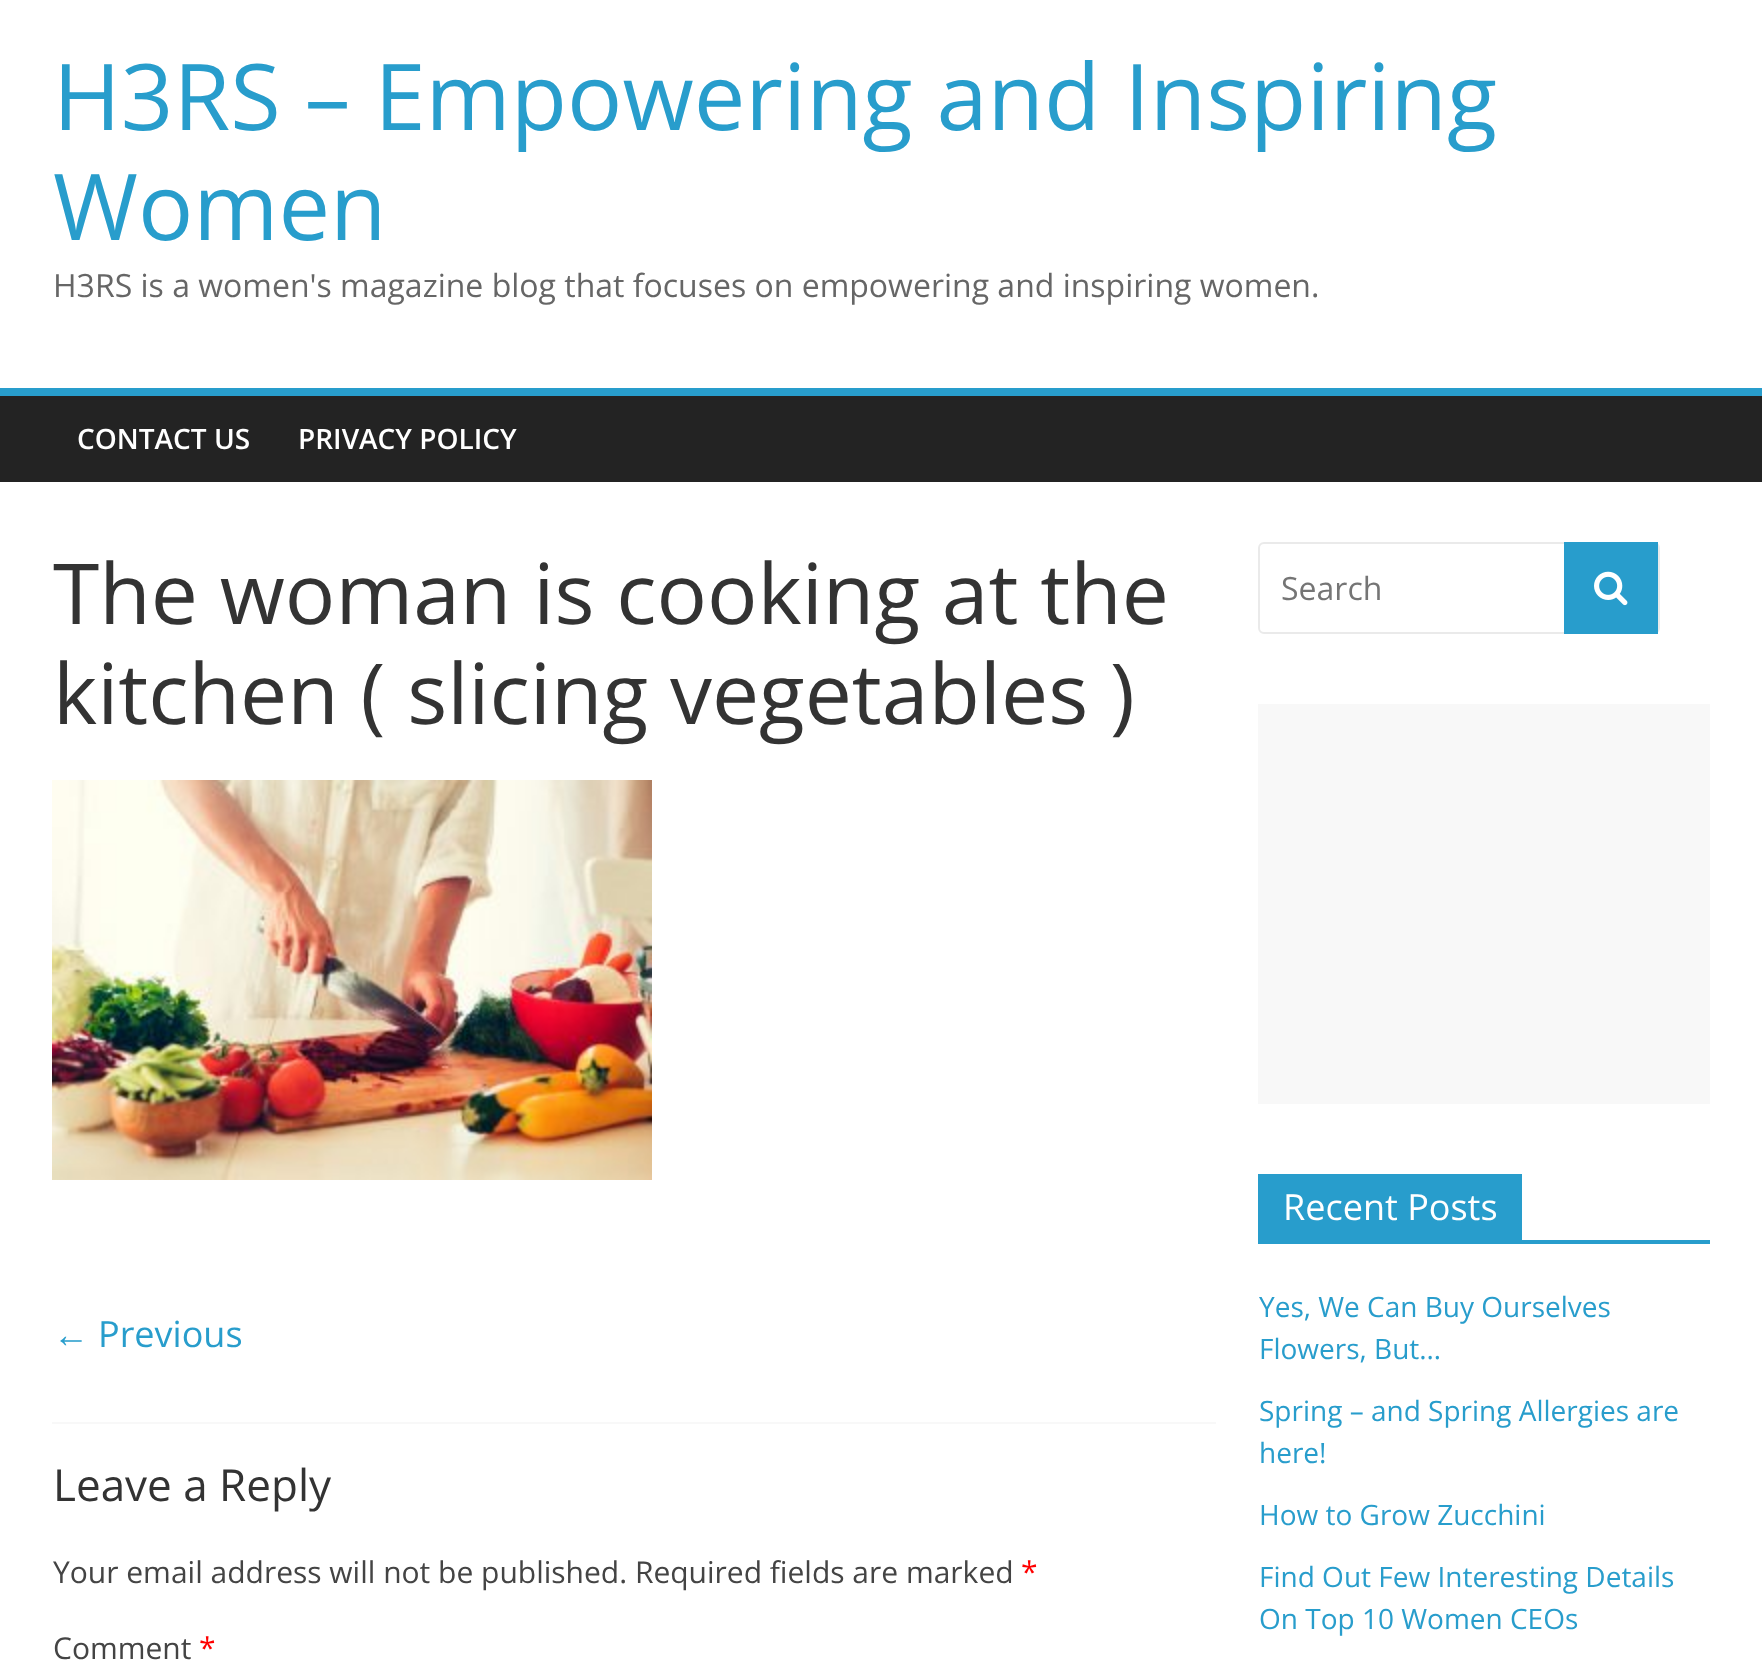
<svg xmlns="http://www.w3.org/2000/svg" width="1762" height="1663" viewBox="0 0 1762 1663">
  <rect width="100%" height="100%" fill="rgb(255,255,255)"/>
  <g font-family="Open Sans" font-size="92" fill="rgb(40,157,204)">
    <text>
      <tspan x="53" y="130">H3RS – Empowering and Inspiring</tspan>
      <tspan x="53" y="240">Women</tspan>
    </text>
  </g>
  <text x="53" y="297" font-family="Open Sans" font-size="32" fill="rgb(102,102,102)">H3RS is a women's magazine blog that focuses on empowering and inspiring women.</text>
  <rect x="0" y="396" width="1762" height="86" fill="rgb(35,35,35)"/>
  <rect x="0" y="388" width="1762" height="8" fill="rgb(40,157,204)"/>
  <g font-family="Open Sans" font-size="28" font-weight="600" fill="rgb(255,255,255)">
    <text x="77" y="449">CONTACT US</text>
    <text x="298" y="449">PRIVACY POLICY</text>
  </g>
  <g font-family="Open Sans" font-size="84" fill="rgb(51,51,51)">
    <text>
      <tspan x="53" y="624">The woman is cooking at the</tspan>
      <tspan x="53" y="724">kitchen ( slicing vegetables )</tspan>
    </text>
  </g>
  <image x="52" y="780" width="600" height="400" href="pic1.png"/>
  <text x="53" y="1347" font-family="Liberation Serif" font-size="36" fill="rgb(40,157,204)">←</text>
  <text x="98" y="1347" font-family="Open Sans" font-size="36" fill="rgb(40,157,204)">Previous</text>
  <rect x="52" y="1422" width="1164" height="2" fill="rgb(248,248,248)"/>
  <text x="53" y="1501" font-family="Open Sans" font-size="44" fill="rgb(51,51,51)">Leave a Reply</text>
  <text x="53" y="1583" font-family="Open Sans" font-size="30" fill="rgb(68,68,68)">Your email address will not be published. Required fields are marked</text>
  <text x="1021" y="1583" font-family="Open Sans" font-size="30" fill="rgb(255,0,0)">*</text>
  <text x="53" y="1659" font-family="Open Sans" font-size="30" fill="rgb(68,68,68)">Comment</text>
  <text x="199" y="1659" font-family="Open Sans" font-size="30" fill="rgb(255,0,0)">*</text>
  <rect x="1259" y="543" width="400" height="90" rx="5" fill="none" stroke="rgb(234,234,234)" stroke-width="2"/>
  <text x="1281" y="600" font-family="Open Sans" font-size="32" fill="rgb(117,117,117)">Search</text>
  <rect x="1564" y="542" width="94" height="92" fill="rgb(40,157,204)"/>
  <image x="1594" y="571" width="34" height="35" href="pic2.png"/>
  <rect x="1258" y="704" width="452" height="400" fill="rgb(248,248,248)"/>
  <rect x="1258" y="1240" width="452" height="4" fill="rgb(40,157,204)"/>
  <rect x="1258" y="1174" width="264" height="66" fill="rgb(40,157,204)"/>
  <text x="1283" y="1220" font-family="Open Sans" font-size="36" fill="rgb(255,255,255)">Recent Posts</text>
  <g font-family="Open Sans" font-size="28" fill="rgb(40,157,204)">
    <text>
      <tspan x="1259" y="1317">Yes, We Can Buy Ourselves</tspan>
      <tspan x="1259" y="1359">Flowers, But…</tspan>
    </text>
    <text>
      <tspan x="1259" y="1421">Spring – and Spring Allergies are</tspan>
      <tspan x="1259" y="1463">here!</tspan>
    </text>
    <text x="1259" y="1525">How to Grow Zucchini</text>
    <text>
      <tspan x="1259" y="1587">Find Out Few Interesting Details</tspan>
      <tspan x="1259" y="1629">On Top 10 Women CEOs</tspan>
    </text>
  </g>
</svg>
